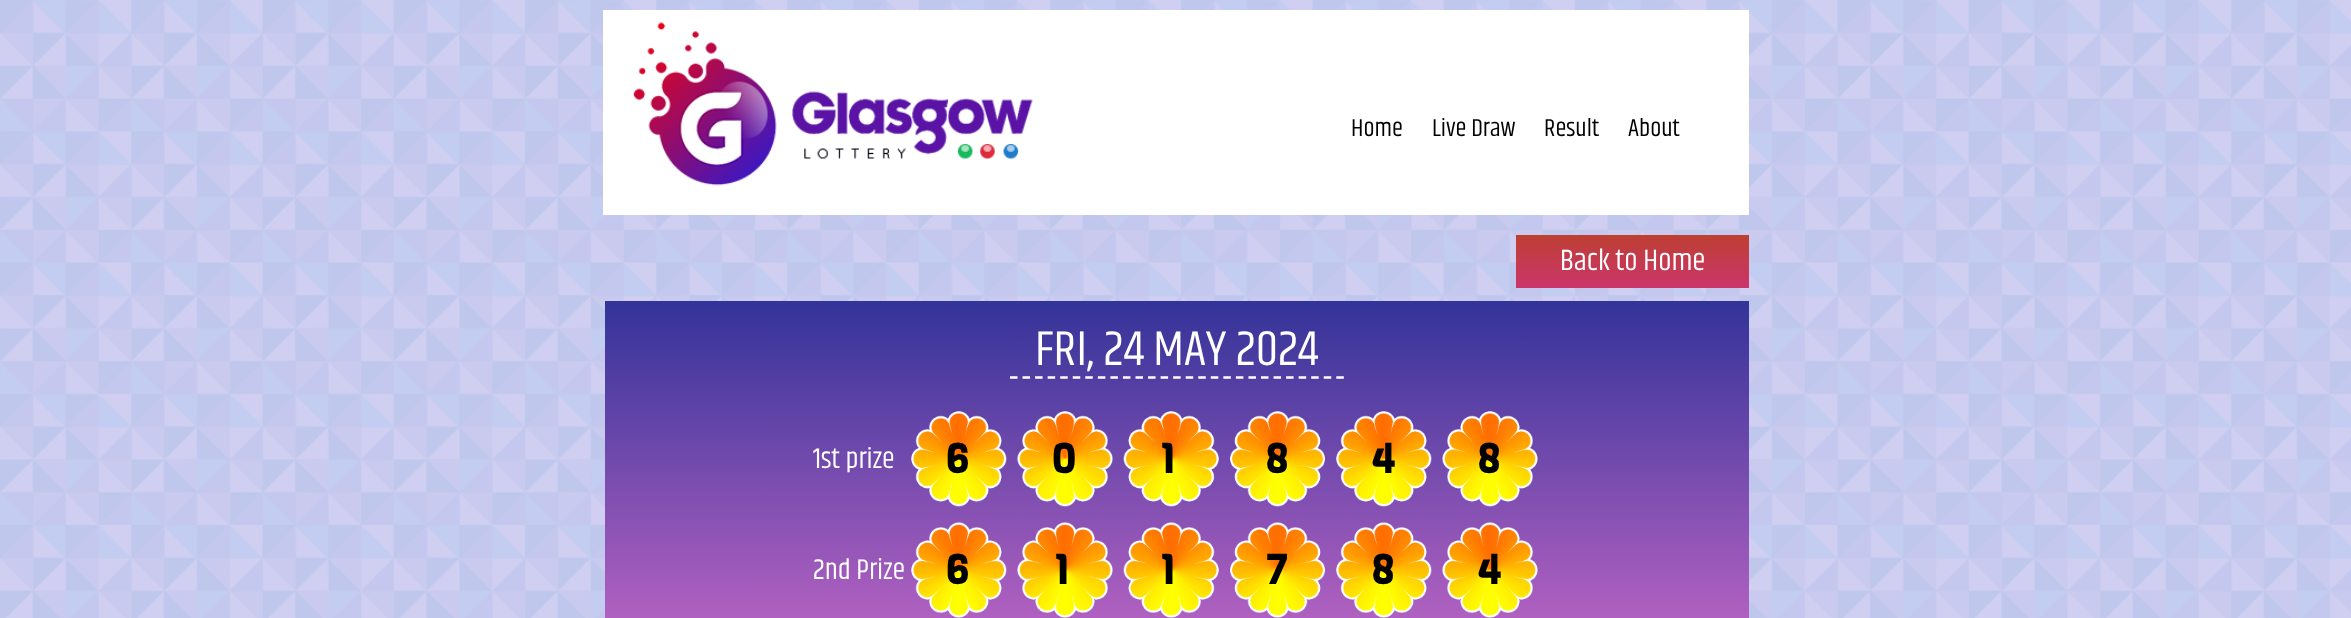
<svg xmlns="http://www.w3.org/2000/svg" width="2351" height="618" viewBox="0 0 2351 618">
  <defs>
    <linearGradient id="g1" gradientUnits="userSpaceOnUse" x1="1633" y1="288" x2="1633" y2="235"><stop offset="0" stop-color="rgb(203,53,107)"/><stop offset="1" stop-color="rgb(189,63,50)"/></linearGradient>
    <linearGradient id="g2" gradientUnits="userSpaceOnUse" x1="1177" y1="301" x2="1177" y2="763"><stop offset="0" stop-color="rgb(51,51,153)"/><stop offset="1" stop-color="rgb(233,117,210)"/></linearGradient>
  </defs>
  <rect width="100%" height="100%" fill="rgb(204,215,255)"/>
  <image x="0" y="0" width="2351" height="618" href="pic1.png"/>
  <rect x="603" y="10" width="1146" height="205" fill="rgb(255,255,255)"/>
  <image x="633" y="22" width="400" height="164" href="pic2.png"/>
  <g font-family="Khand" font-size="25" fill="rgb(0,0,0)">
    <text x="1351" y="136">Home</text>
    <text x="1432" y="136">Live Draw</text>
    <text x="1544" y="136">Result</text>
    <text x="1628" y="136">About</text>
  </g>
  <rect x="1516" y="235" width="233" height="53" fill="url(#g1)"/>
  <text x="1560" y="270" font-family="Khand" font-size="30" fill="rgb(255,255,255)">Back to Home</text>
  <rect x="605" y="301" width="1144" height="317" fill="url(#g2)"/>
  <path d="M1010 377.5H1344" fill="none" stroke="rgb(255,255,255)" stroke-width="2.5" stroke-dasharray="7.5 5.05"/>
  <text x="1035" y="365" font-family="Khand" font-size="50" fill="rgb(255,255,255)">FRI, 24 MAY 2024</text>
  <text x="813" y="468" font-family="Khand" font-size="29" fill="rgb(255,255,255)">1st prize</text>
  <image x="911" y="411" width="96" height="96" href="pic3.png"/>
  <text x="946" y="473" font-family="Viga" font-size="41" font-weight="bold" fill="rgb(0,0,0)">6</text>
  <image x="1017" y="411" width="96" height="96" href="pic4.png"/>
  <text x="1052" y="473" font-family="Viga" font-size="41" font-weight="bold" fill="rgb(0,0,0)">0</text>
  <image x="1123" y="411" width="96" height="96" href="pic5.png"/>
  <text x="1158" y="473" font-family="Viga" font-size="41" font-weight="bold" fill="rgb(0,0,0)">1</text>
  <image x="1230" y="411" width="95" height="96" href="pic6.png"/>
  <text x="1265" y="473" font-family="Viga" font-size="41" font-weight="bold" fill="rgb(0,0,0)">8</text>
  <image x="1336" y="411" width="96" height="96" href="pic7.png"/>
  <text x="1371" y="473" font-family="Viga" font-size="41" font-weight="bold" fill="rgb(0,0,0)">4</text>
  <image x="1442" y="411" width="96" height="96" href="pic4.png"/>
  <text x="1477" y="473" font-family="Viga" font-size="41" font-weight="bold" fill="rgb(0,0,0)">8</text>
  <text x="813" y="579" font-family="Khand" font-size="29" fill="rgb(255,255,255)">2nd Prize</text>
  <image x="911" y="522" width="96" height="96" href="pic8.png"/>
  <text x="946" y="584" font-family="Viga" font-size="41" font-weight="bold" fill="rgb(0,0,0)">6</text>
  <image x="1017" y="522" width="96" height="96" href="pic9.png"/>
  <text x="1052" y="584" font-family="Viga" font-size="41" font-weight="bold" fill="rgb(0,0,0)">1</text>
  <image x="1123" y="522" width="96" height="96" href="pic10.png"/>
  <text x="1158" y="584" font-family="Viga" font-size="41" font-weight="bold" fill="rgb(0,0,0)">1</text>
  <image x="1230" y="522" width="95" height="96" href="pic11.png"/>
  <text x="1265" y="584" font-family="Viga" font-size="41" font-weight="bold" fill="rgb(0,0,0)">7</text>
  <image x="1336" y="522" width="96" height="96" href="pic12.png"/>
  <text x="1371" y="584" font-family="Viga" font-size="41" font-weight="bold" fill="rgb(0,0,0)">8</text>
  <image x="1442" y="522" width="96" height="96" href="pic9.png"/>
  <text x="1477" y="584" font-family="Viga" font-size="41" font-weight="bold" fill="rgb(0,0,0)">4</text>
</svg>
